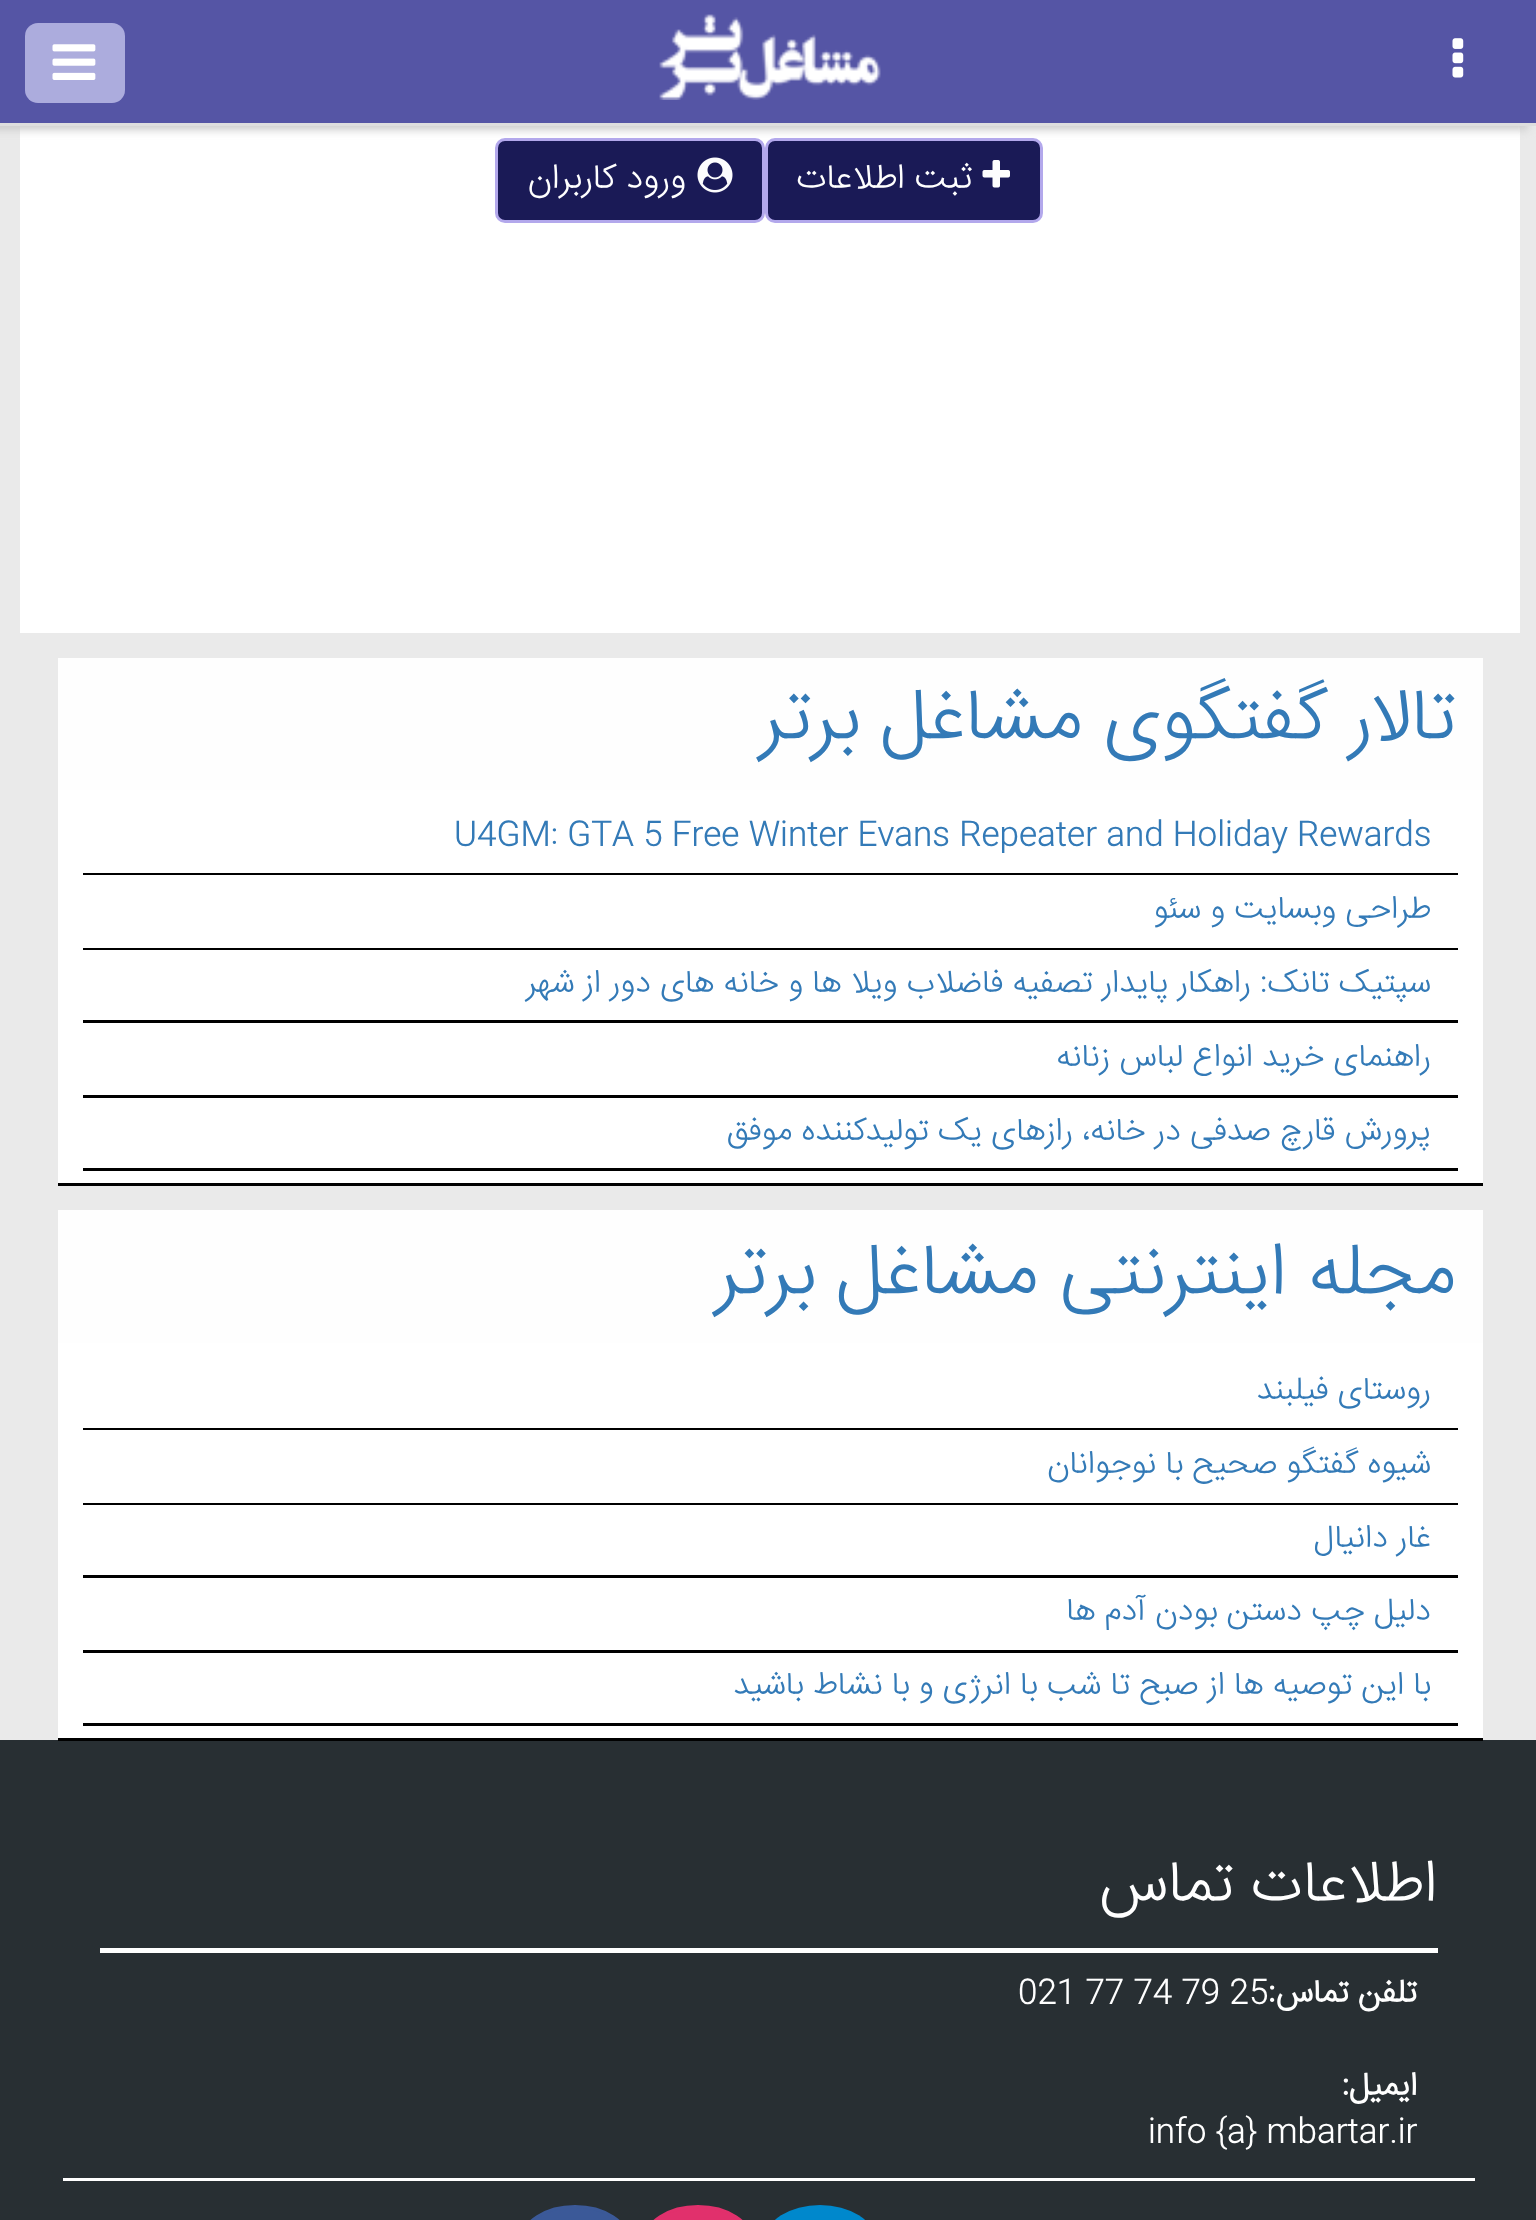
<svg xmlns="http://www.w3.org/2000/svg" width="1536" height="2220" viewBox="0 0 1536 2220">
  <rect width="100%" height="100%" fill="rgb(234,234,234)"/>
  <rect x="20" y="126" width="1500" height="507" fill="rgb(255,255,255)"/>
  <rect x="-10" y="5" width="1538" height="125" fill="rgb(204,204,204)" filter="blur(4px)"/>
  <rect x="0" y="0" width="1536" height="123" fill="rgb(85,85,165)"/>
  <image x="1452" y="38" width="12" height="40" href="pic1.png"/>
  <rect x="0" y="123" width="1536" height="3" fill="rgb(222,222,222)"/>
  <image x="659" y="14" width="222" height="86" href="pic2.png"/>
  <rect x="25" y="23" width="100" height="80" rx="13" fill="rgb(172,172,221)"/>
  <image x="52" y="44" width="44" height="36" href="pic3.png"/>
  <rect x="766.5" y="139.5" width="275" height="82" rx="8.5" fill="rgb(26,26,86)" stroke="rgb(179,168,236)" stroke-width="3"/>
  <image x="982" y="160" width="28" height="28" href="pic4.png"/>
  <text x="972" y="188" font-family="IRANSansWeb" font-size="35" font-weight="300" direction="rtl" fill="rgb(255,255,255)">ثبت اطلاعات</text>
  <rect x="496.5" y="139.5" width="267" height="82" rx="8.5" fill="rgb(26,26,86)" stroke="rgb(179,168,236)" stroke-width="3"/>
  <image x="697" y="157" width="36" height="36" href="pic5.png"/>
  <text x="686" y="188" font-family="IRANSansWeb" font-size="35" font-weight="300" direction="rtl" fill="rgb(255,255,255)">ورود کاربران</text>
  <rect x="58" y="658" width="1425" height="132" fill="rgb(254,254,254)"/>
  <text x="1456" y="739" font-family="IRANSansWeb" font-size="75" font-weight="300" direction="rtl" fill="rgb(51,122,183)">تالار گفتگوی مشاغل برتر</text>
  <rect x="58" y="790" width="1425" height="393" fill="rgb(255,255,255)"/>
  <rect x="58" y="1183" width="1425" height="3" fill="rgb(0,0,0)"/>
  <rect x="83" y="873" width="1375" height="2" fill="rgb(0,0,0)"/>
  <text x="454" y="844" font-family="IRANSansWeb" font-size="32.5" font-weight="300" fill="rgb(51,122,183)">U4GM: GTA 5 Free Winter Evans Repeater and Holiday Rewards</text>
  <rect x="83" y="948" width="1375" height="2" fill="rgb(0,0,0)"/>
  <text x="1431" y="918" font-family="IRANSansWeb" font-size="32.5" font-weight="300" direction="rtl" fill="rgb(51,122,183)">طراحی وبسایت و سئو</text>
  <rect x="83" y="1020" width="1375" height="3" fill="rgb(0,0,0)"/>
  <text x="1431" y="992" font-family="IRANSansWeb" font-size="32.5" font-weight="300" direction="rtl" fill="rgb(51,122,183)">سپتیک تانک: راهکار پایدار تصفیه فاضلاب ویلا ها و خانه های دور از شهر</text>
  <rect x="83" y="1095" width="1375" height="3" fill="rgb(0,0,0)"/>
  <text x="1431" y="1066" font-family="IRANSansWeb" font-size="32.5" font-weight="300" direction="rtl" fill="rgb(51,122,183)">راهنمای خرید انواع لباس زنانه</text>
  <rect x="83" y="1168" width="1375" height="3" fill="rgb(0,0,0)"/>
  <text x="1431" y="1140" font-family="IRANSansWeb" font-size="32.5" font-weight="300" direction="rtl" fill="rgb(51,122,183)">پرورش قارچ صدفی در خانه، رازهای یک تولیدکننده موفق</text>
  <rect x="58" y="1210" width="1425" height="133" fill="rgb(254,254,254)"/>
  <text x="1456" y="1294" font-family="IRANSansWeb" font-size="75" font-weight="300" direction="rtl" fill="rgb(51,122,183)">مجله اینترنتی مشاغل برتر</text>
  <rect x="58" y="1343" width="1425" height="395" fill="rgb(255,255,255)"/>
  <rect x="0" y="1740" width="1536" height="480" fill="rgb(40,47,51)"/>
  <rect x="58" y="1738" width="1425" height="3" fill="rgb(0,0,0)"/>
  <rect x="83" y="1428" width="1375" height="2" fill="rgb(0,0,0)"/>
  <text x="1431" y="1399" font-family="IRANSansWeb" font-size="32.5" font-weight="300" direction="rtl" fill="rgb(51,122,183)">روستای فیلبند</text>
  <rect x="83" y="1503" width="1375" height="2" fill="rgb(0,0,0)"/>
  <text x="1431" y="1473" font-family="IRANSansWeb" font-size="32.5" font-weight="300" direction="rtl" fill="rgb(51,122,183)">شیوه گفتگو صحیح با نوجوانان</text>
  <rect x="83" y="1575" width="1375" height="3" fill="rgb(0,0,0)"/>
  <text x="1431" y="1547" font-family="IRANSansWeb" font-size="32.5" font-weight="300" direction="rtl" fill="rgb(51,122,183)">غار دانیال</text>
  <rect x="83" y="1650" width="1375" height="3" fill="rgb(0,0,0)"/>
  <text x="1431" y="1620" font-family="IRANSansWeb" font-size="32.5" font-weight="300" direction="rtl" fill="rgb(51,122,183)">دلیل چپ دستن بودن آدم ها</text>
  <rect x="83" y="1723" width="1375" height="3" fill="rgb(0,0,0)"/>
  <text x="1431" y="1694" font-family="IRANSansWeb" font-size="32.5" font-weight="300" direction="rtl" fill="rgb(51,122,183)">با این توصیه ها از صبح تا شب با انرژی و با نشاط باشید</text>
  <rect x="100" y="1948" width="1338" height="5" fill="rgb(255,255,255)"/>
  <text x="1437" y="1901" font-family="IRANSansWeb" font-size="60" font-weight="300" direction="rtl" fill="rgb(255,255,255)">اطلاعات تماس</text>
  <text x="1417" y="2002" font-family="IRANSansWeb" font-size="32.5" font-weight="bold" direction="rtl" fill="rgb(255,255,255)">تلفن تماس:</text>
  <text x="1018" y="2002" font-family="IRANSansWeb" font-size="32.5" font-weight="300" fill="rgb(255,255,255)">021 77 74 79 25</text>
  <text x="1417" y="2095" font-family="IRANSansWeb" font-size="32.5" font-weight="bold" direction="rtl" fill="rgb(255,255,255)">ایمیل:</text>
  <text x="1148" y="2141" font-family="IRANSansWeb" font-size="32.5" font-weight="300" fill="rgb(255,255,255)">info {a} mbartar.ir</text>
  <rect x="63" y="2178" width="1412" height="3" fill="rgb(255,255,255)"/>
  <rect x="765" y="2205" width="110" height="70" rx="55" fill="rgb(0,136,204)"/>
  <rect x="644.5" y="2206.5" width="107" height="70" rx="53.5" fill="rgb(225,48,108)" stroke="rgb(225,48,108)" stroke-width="3"/>
  <rect x="521.5" y="2206.5" width="107" height="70" rx="53.5" fill="rgb(59,89,152)" stroke="rgb(59,89,152)" stroke-width="3"/>
</svg>
